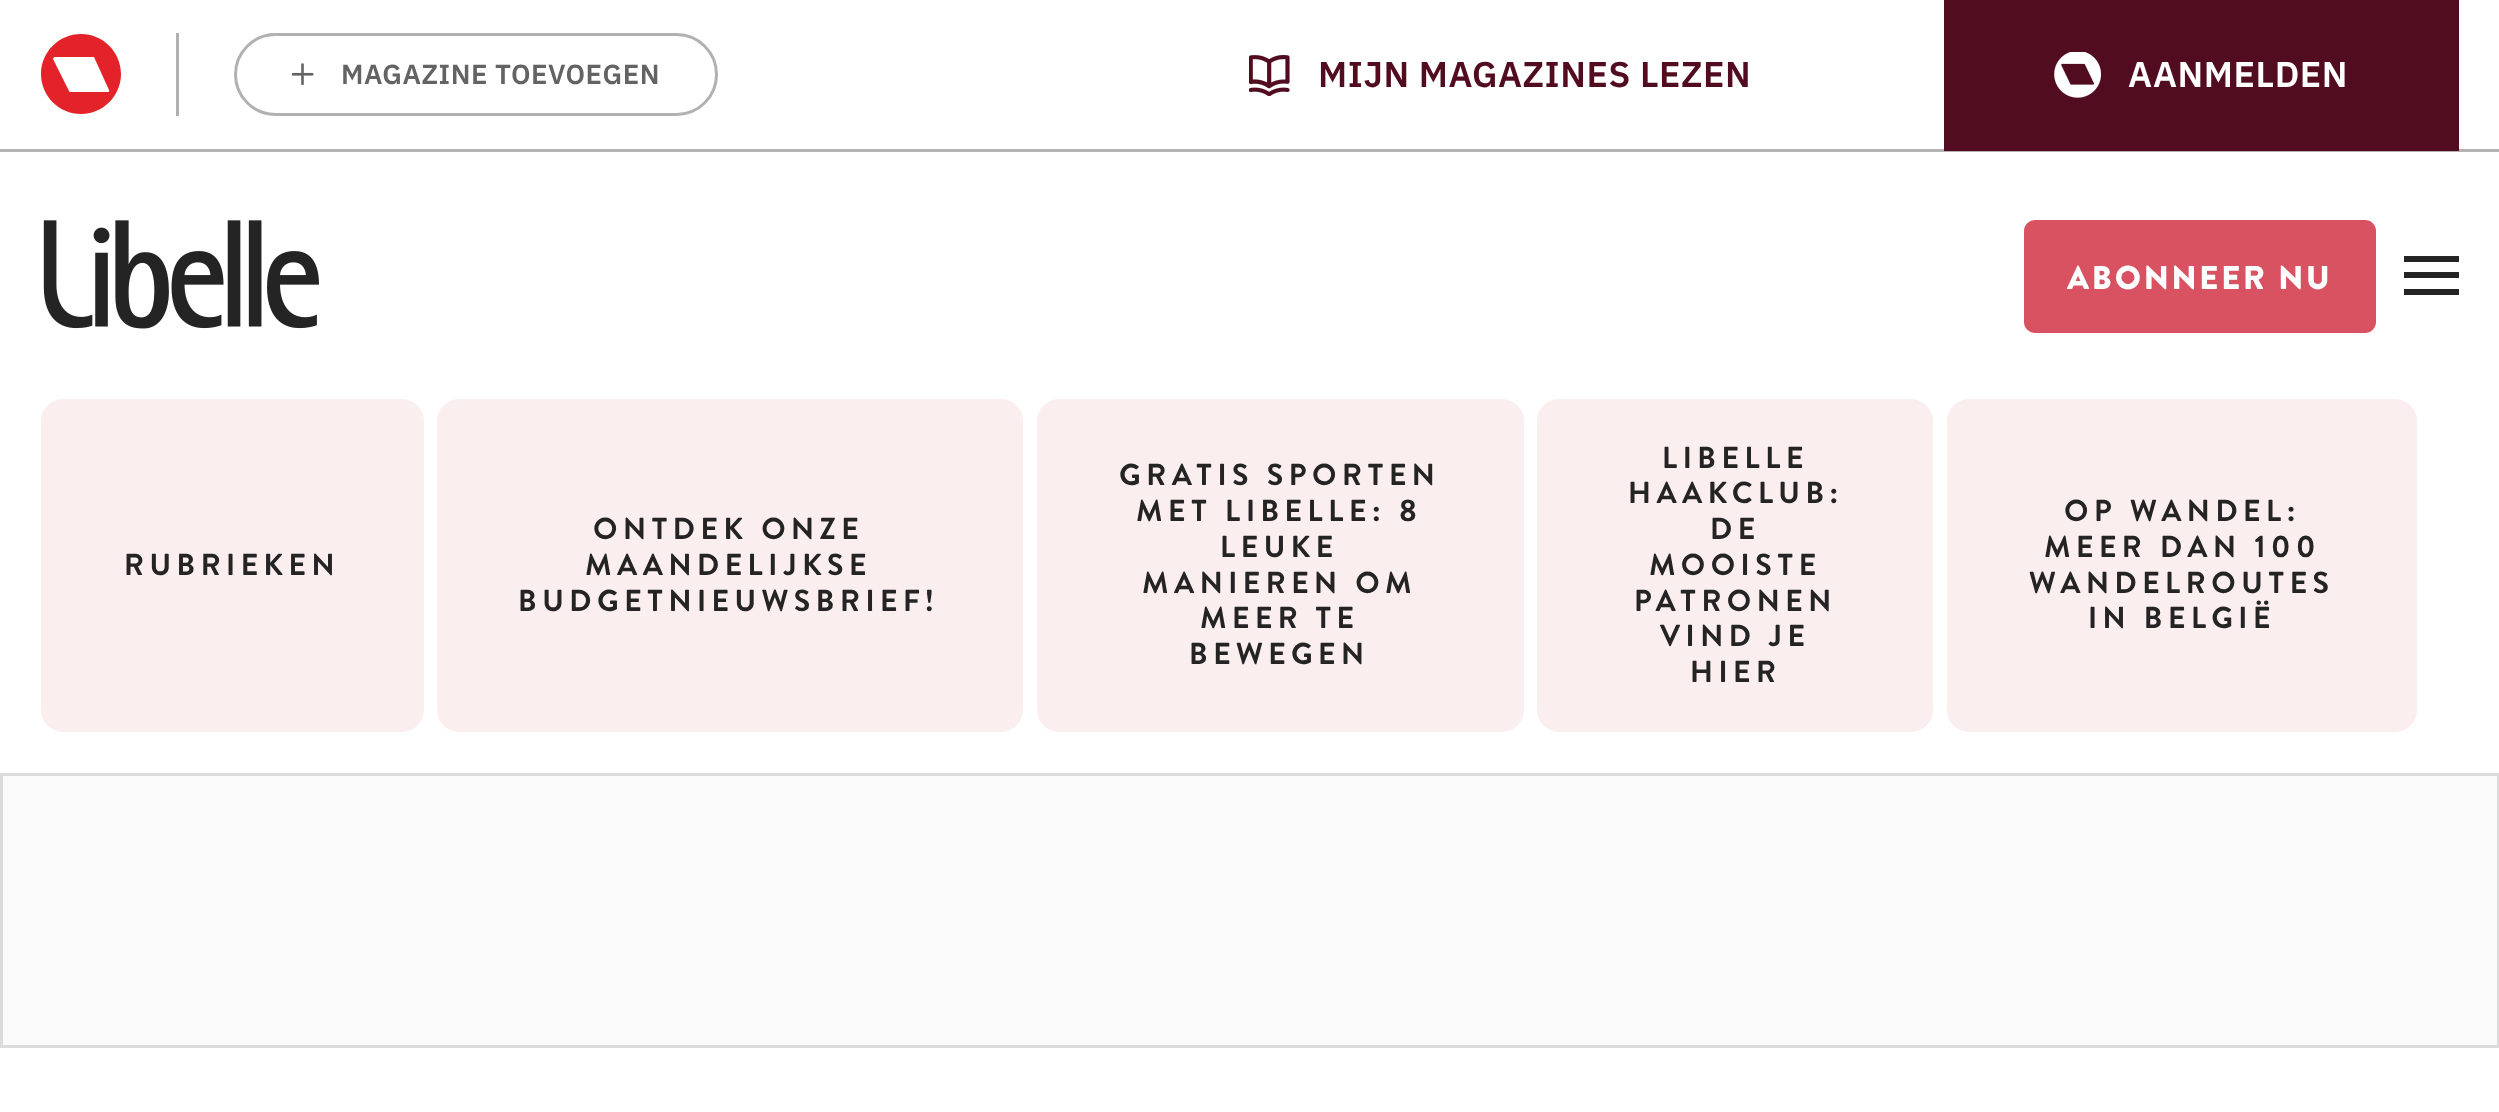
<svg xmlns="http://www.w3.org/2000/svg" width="2499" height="1112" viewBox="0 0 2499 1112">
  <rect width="100%" height="100%" fill="rgb(255,255,255)"/>
  <rect x="0" y="149" width="2499" height="3" fill="rgb(178,178,178)"/>
  <rect x="176" y="33" width="3" height="83" fill="rgb(178,177,177)"/>
  <path d="M108 92H70L69 91L53 59C53 58 54 57 55 57H92H94L109 90C110 91 109 92 108 92ZM81 34C59 34 41 52 41 74C41 96 59 114 81 114C103 114 121 96 121 74C121 52 103 34 81 34Z" fill="rgb(228,34,41)" fill-rule="evenodd"/>
  <rect x="235.5" y="34.5" width="481" height="80" rx="40" fill="none" stroke="rgb(178,177,177)" stroke-width="3"/>
  <image x="292" y="63" width="22" height="22" href="pic1.png"/>
  <text x="341" y="84" font-family="IBM Plex Sans" font-size="27.5" font-weight="600" letter-spacing="0.55" fill="rgb(100,99,99)">MAGAZINE TOEVOEGEN</text>
  <image x="1249" y="55" width="41" height="41" href="pic2.png"/>
  <text x="1318" y="87" font-family="IBM Plex Sans" font-size="35.75" font-weight="600" letter-spacing="0.55" fill="rgb(82,12,32)">MIJN MAGAZINES LEZEN</text>
  <rect x="1944" y="0" width="515" height="151" fill="rgb(82,12,32)"/>
  <image x="2054" y="52" width="47" height="46" href="pic3.png"/>
  <text x="2128" y="87" font-family="IBM Plex Sans" font-size="35.75" font-weight="600" letter-spacing="0.55" fill="rgb(255,255,255)">AANMELDEN</text>
  <image x="43" y="220" width="276" height="109" href="pic4.png"/>
  <rect x="2025.5" y="221.5" width="349" height="110" rx="9.5" fill="rgb(216,82,97)" stroke="rgb(216,82,97)" stroke-width="3"/>
  <text x="2067" y="289" font-family="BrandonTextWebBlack" font-size="33" font-weight="900" letter-spacing="2.75" fill="rgb(255,255,255)">ABONNEER NU</text>
  <rect x="2404" y="256" width="55" height="6" fill="rgb(36,36,36)"/>
  <rect x="2404" y="272" width="55" height="6" fill="rgb(36,36,36)"/>
  <rect x="2404" y="289" width="55" height="6" fill="rgb(36,36,36)"/>
  <rect x="41" y="399" width="383" height="333" rx="22" fill="rgb(251,238,239)"/>
  <text x="124" y="575" font-family="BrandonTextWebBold" font-size="30.25" font-weight="bold" letter-spacing="5.5" fill="rgb(36,36,36)">RUBRIEKEN</text>
  <rect x="437" y="399" width="586" height="333" rx="22" fill="rgb(251,238,239)"/>
  <g font-family="BrandonTextWebBold" font-size="30.25" font-weight="bold" letter-spacing="5.5" fill="rgb(36,36,36)">
    <text x="593" y="539">ONTDEK ONZE</text>
    <text x="585" y="575">MAANDELIJKSE</text>
    <text x="518" y="611">BUDGETNIEUWSBRIEF!</text>
  </g>
  <rect x="1037" y="399" width="487" height="333" rx="22" fill="rgb(251,238,239)"/>
  <g font-family="BrandonTextWebBold" font-size="30.25" font-weight="bold" letter-spacing="5.5" fill="rgb(36,36,36)">
    <text x="1119" y="485">GRATIS SPORTEN</text>
    <text x="1136" y="521">MET LIBELLE: 8</text>
    <text x="1220" y="557">LEUKE</text>
    <text x="1142" y="593">MANIEREN OM</text>
    <text x="1200" y="628">MEER TE</text>
    <text x="1189" y="664">BEWEGEN</text>
  </g>
  <rect x="1537" y="399" width="396" height="333" rx="22" fill="rgb(251,238,239)"/>
  <g font-family="BrandonTextWebBold" font-size="30.25" font-weight="bold" letter-spacing="5.5" fill="rgb(36,36,36)">
    <text x="1662" y="468">LIBELLE</text>
    <text x="1628" y="503">HAAKCLUB:</text>
    <text x="1710" y="539">DE</text>
    <text x="1649" y="575">MOOISTE</text>
    <text x="1634" y="611">PATRONEN</text>
    <text x="1660" y="646">VIND JE</text>
    <text x="1690" y="682">HIER</text>
  </g>
  <rect x="1947" y="399" width="470" height="333" rx="22" fill="rgb(251,238,239)"/>
  <g font-family="BrandonTextWebBold" font-size="30.25" font-weight="bold" letter-spacing="5.5" fill="rgb(36,36,36)">
    <text x="2064" y="521">OP WANDEL:</text>
    <text x="2044" y="557">MEER DAN 100</text>
    <text x="2029" y="593">WANDELROUTES</text>
    <text x="2088" y="628">IN BELGIË</text>
  </g>
  <rect x="1.5" y="774.5" width="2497" height="272" fill="rgb(250,250,250)" stroke="rgb(219,219,219)" stroke-width="3"/>
</svg>
